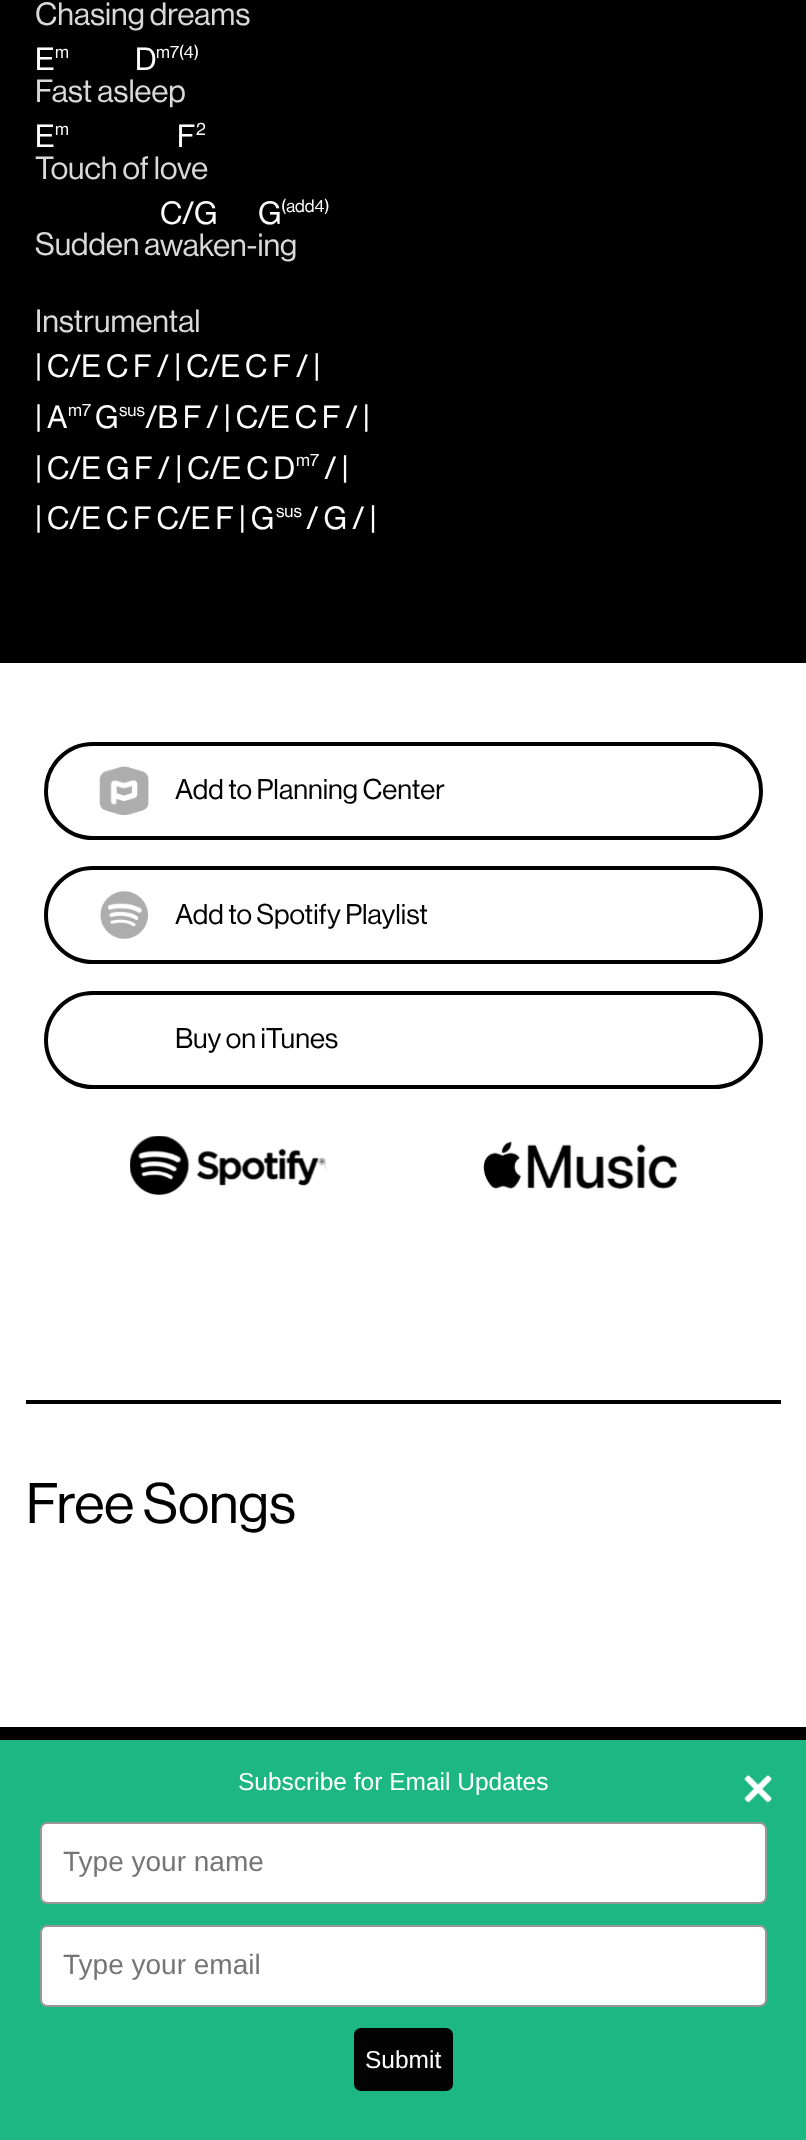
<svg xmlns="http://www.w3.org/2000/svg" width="806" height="2140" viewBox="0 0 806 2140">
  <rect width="100%" height="100%" fill="rgb(255,255,255)"/>
  <rect x="0" y="0" width="806" height="663" fill="rgb(0,0,0)"/>
  <text x="35" y="25" font-family="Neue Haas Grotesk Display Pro" font-size="31.5" font-weight="500" fill="rgb(217,217,217)">Chasing dreams</text>
  <text x="135" y="70" font-family="Neue Haas Grotesk Display Pro" font-size="31.5" font-weight="500" fill="rgb(255,255,255)">D</text>
  <text x="156" y="58" font-family="Neue Haas Grotesk Display Pro" font-size="17.5" font-weight="500" fill="rgb(255,255,255)">m7(4)</text>
  <text x="35" y="70" font-family="Neue Haas Grotesk Display Pro" font-size="31.5" font-weight="500" fill="rgb(255,255,255)">E</text>
  <text x="55" y="58" font-family="Neue Haas Grotesk Display Pro" font-size="17.5" font-weight="500" fill="rgb(255,255,255)">m</text>
  <text x="35" y="102" font-family="Neue Haas Grotesk Display Pro" font-size="31.5" font-weight="500" fill="rgb(217,217,217)">Fast asleep</text>
  <text x="177" y="147" font-family="Neue Haas Grotesk Display Pro" font-size="31.5" font-weight="500" fill="rgb(255,255,255)">F</text>
  <text x="196" y="135" font-family="Neue Haas Grotesk Display Pro" font-size="17.5" font-weight="500" fill="rgb(255,255,255)">2</text>
  <text x="35" y="147" font-family="Neue Haas Grotesk Display Pro" font-size="31.5" font-weight="500" fill="rgb(255,255,255)">E</text>
  <text x="55" y="135" font-family="Neue Haas Grotesk Display Pro" font-size="17.5" font-weight="500" fill="rgb(255,255,255)">m</text>
  <text x="35" y="179" font-family="Neue Haas Grotesk Display Pro" font-size="31.5" font-weight="500" fill="rgb(217,217,217)">Touch of love</text>
  <text x="258" y="224" font-family="Neue Haas Grotesk Display Pro" font-size="31.5" font-weight="500" fill="rgb(255,255,255)">G</text>
  <text x="281" y="212" font-family="Neue Haas Grotesk Display Pro" font-size="17.5" font-weight="500" fill="rgb(255,255,255)">(add4)</text>
  <text x="35" y="255" font-family="Neue Haas Grotesk Display Pro" font-size="31.5" font-weight="500" fill="rgb(217,217,217)">Sudden a</text>
  <g font-family="Neue Haas Grotesk Display Pro" font-size="31.5" font-weight="500" fill="rgb(255,255,255)">
    <text x="160" y="224">C/</text>
    <text x="194" y="224">G</text>
  </g>
  <g font-family="Neue Haas Grotesk Display Pro" font-size="31.5" font-weight="500" fill="rgb(217,217,217)">
    <text x="160" y="256">waken-ing</text>
    <text x="35" y="332">Instrumental</text>
  </g>
  <g font-family="Neue Haas Grotesk Display Pro" font-size="31.5" font-weight="500" fill="rgb(255,255,255)">
    <text>
      <tspan x="35" y="377">| C/E C F / | C/E C F / |</tspan>
      <tspan x="35" y="428">| A</tspan>
    </text>
  </g>
  <text x="68" y="416" font-family="Neue Haas Grotesk Display Pro" font-size="17.5" font-weight="500" fill="rgb(255,255,255)">m7</text>
  <text x="95" y="428" font-family="Neue Haas Grotesk Display Pro" font-size="31.5" font-weight="500" fill="rgb(255,255,255)">G</text>
  <text x="119" y="416" font-family="Neue Haas Grotesk Display Pro" font-size="17.5" font-weight="500" fill="rgb(255,255,255)">sus</text>
  <g font-family="Neue Haas Grotesk Display Pro" font-size="31.5" font-weight="500" fill="rgb(255,255,255)">
    <text x="145" y="428">/B F / | C/E C F / |</text>
    <text x="35" y="479">| C/E G F / | C/E C D</text>
  </g>
  <text x="296" y="466" font-family="Neue Haas Grotesk Display Pro" font-size="17.5" font-weight="500" fill="rgb(255,255,255)">m7</text>
  <g font-family="Neue Haas Grotesk Display Pro" font-size="31.5" font-weight="500" fill="rgb(255,255,255)">
    <text x="324" y="479">/ |</text>
    <text x="35" y="529">| C/E C F C/E F | G</text>
  </g>
  <text x="276" y="517" font-family="Neue Haas Grotesk Display Pro" font-size="17.5" font-weight="500" fill="rgb(255,255,255)">sus</text>
  <text x="306" y="529" font-family="Neue Haas Grotesk Display Pro" font-size="31.5" font-weight="500" fill="rgb(255,255,255)">/ G / |</text>
  <rect x="46" y="744" width="715" height="94" rx="47" fill="none" stroke="rgb(0,0,0)" stroke-width="4"/>
  <image x="99" y="766" width="50" height="50" href="pic1.png"/>
  <text x="175" y="799" font-family="Neue Haas Grotesk Display Pro" font-size="28" font-weight="500" fill="rgb(0,0,0)">Add to Planning Center</text>
  <rect x="46" y="868" width="715" height="94" rx="47" fill="none" stroke="rgb(0,0,0)" stroke-width="4"/>
  <image x="100" y="891" width="48" height="48" href="pic2.png"/>
  <text x="175" y="924" font-family="Neue Haas Grotesk Display Pro" font-size="28" font-weight="500" fill="rgb(0,0,0)">Add to Spotify Playlist</text>
  <rect x="46" y="993" width="715" height="94" rx="47" fill="none" stroke="rgb(0,0,0)" stroke-width="4"/>
  <text x="175" y="1048" font-family="Neue Haas Grotesk Display Pro" font-size="28" font-weight="500" fill="rgb(0,0,0)">Buy on iTunes</text>
  <image x="130" y="1136" width="196" height="59" href="pic3.png"/>
  <image x="483" y="1141" width="194" height="48" href="pic4.png"/>
  <rect x="26" y="1400" width="755" height="4" fill="rgb(0,0,0)"/>
  <text x="26" y="1523" font-family="Neue Haas Grotesk Display Pro" font-size="56" font-weight="500" fill="rgb(0,0,0)">Free Songs</text>
  <rect x="0" y="1727" width="806" height="13" fill="rgb(0,0,0)"/>
  <rect x="0" y="1740" width="806" height="400" fill="rgb(28,183,131)"/>
  <text x="238" y="1790" font-family="Liberation Sans" font-size="24.5" fill="rgb(255,255,255)">Subscribe for Email Updates</text>
  <rect x="41" y="1823" width="725" height="80" rx="6" fill="rgb(255,255,255)" stroke="rgb(151,151,151)" stroke-width="2"/>
  <text x="63" y="1871" font-family="Liberation Sans" font-size="28" fill="rgb(117,117,117)">Type your name</text>
  <rect x="41" y="1926" width="725" height="80" rx="6" fill="rgb(255,255,255)" stroke="rgb(151,151,151)" stroke-width="2"/>
  <text x="63" y="1974" font-family="Liberation Sans" font-size="28" fill="rgb(117,117,117)">Type your email</text>
  <rect x="354" y="2028" width="99" height="63" rx="7" fill="rgb(3,3,3)"/>
  <text x="365" y="2068" font-family="Liberation Sans" font-size="24.5" fill="rgb(255,255,255)">Submit</text>
  <image x="744" y="1775" width="28" height="28" href="pic5.png"/>
</svg>
